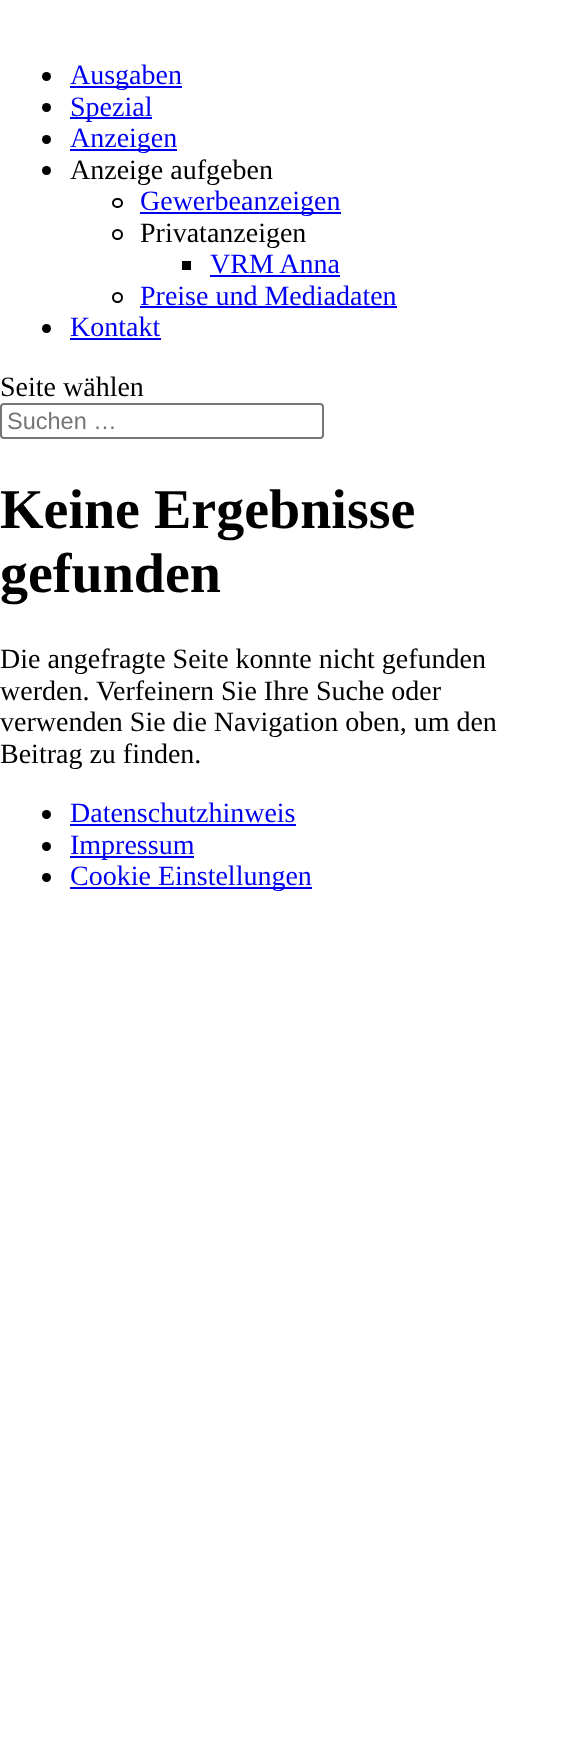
<svg xmlns="http://www.w3.org/2000/svg" width="564" height="1752" viewBox="0 0 564 1752">
  <rect width="100%" height="100%" fill="rgb(255,255,255)"/>
  <circle cx="46.5" cy="76.5" r="4.5" fill="rgb(0,0,0)"/>
  <rect x="70" y="86" width="112" height="2" fill="rgb(0,0,238)"/>
  <text x="70" y="84" font-family="Liberation Serif" font-size="28" fill="rgb(0,0,238)">Ausgaben</text>
  <circle cx="46.5" cy="107.5" r="4.5" fill="rgb(0,0,0)"/>
  <rect x="70" y="117" width="82" height="2" fill="rgb(0,0,238)"/>
  <text x="70" y="116" font-family="Liberation Serif" font-size="28" fill="rgb(0,0,238)">Spezial</text>
  <circle cx="46.5" cy="139.5" r="4.5" fill="rgb(0,0,0)"/>
  <rect x="70" y="149" width="107" height="2" fill="rgb(0,0,238)"/>
  <text x="70" y="147" font-family="Liberation Serif" font-size="28" fill="rgb(0,0,238)">Anzeigen</text>
  <circle cx="46.5" cy="170.5" r="4.5" fill="rgb(0,0,0)"/>
  <text x="70" y="179" font-family="Liberation Serif" font-size="28" fill="rgb(0,0,0)">Anzeige aufgeben</text>
  <rect x="113" y="199" width="9" height="8" rx="4" fill="none" stroke="rgb(0,0,0)" stroke-width="2"/>
  <rect x="140" y="212" width="201" height="2" fill="rgb(0,0,238)"/>
  <text x="140" y="210" font-family="Liberation Serif" font-size="28" fill="rgb(0,0,238)">Gewerbeanzeigen</text>
  <circle cx="117.5" cy="234.5" r="4.5" fill="none" stroke="rgb(0,0,0)" stroke-width="2"/>
  <text x="140" y="242" font-family="Liberation Serif" font-size="28" fill="rgb(0,0,0)">Privatanzeigen</text>
  <rect x="182" y="261" width="9" height="9" fill="rgb(0,0,0)"/>
  <text x="210" y="273" font-family="Liberation Serif" font-size="28" fill="rgb(0,0,238)">VRM Anna</text>
  <rect x="210" y="275" width="130" height="2" fill="rgb(0,0,238)"/>
  <circle cx="117.5" cy="297.5" r="4.5" fill="none" stroke="rgb(0,0,0)" stroke-width="2"/>
  <text x="140" y="305" font-family="Liberation Serif" font-size="28" fill="rgb(0,0,238)">Preise und Mediadaten</text>
  <rect x="140" y="306" width="257" height="2" fill="rgb(0,0,238)"/>
  <circle cx="46.5" cy="328.5" r="4.5" fill="rgb(0,0,0)"/>
  <text x="70" y="336" font-family="Liberation Serif" font-size="28" fill="rgb(0,0,238)">Kontakt</text>
  <rect x="70" y="338" width="91" height="2" fill="rgb(0,0,238)"/>
  <text x="0" y="396" font-family="Liberation Serif" font-size="28" fill="rgb(0,0,0)">Seite wählen</text>
  <rect x="1" y="404" width="322" height="34" rx="3" fill="none" stroke="rgb(118,118,118)" stroke-width="2"/>
  <text x="7" y="429" font-family="Liberation Sans" font-size="23.5" fill="rgb(117,117,117)">Suchen …</text>
  <g font-family="Liberation Serif" font-size="56" font-weight="bold" fill="rgb(0,0,0)">
    <text>
      <tspan x="0" y="528">Keine Ergebnisse</tspan>
      <tspan x="0" y="592">gefunden</tspan>
    </text>
  </g>
  <g font-family="Liberation Serif" font-size="28" fill="rgb(0,0,0)">
    <text>
      <tspan x="0" y="668">Die angefragte Seite konnte nicht gefunden</tspan>
      <tspan x="0" y="700">werden. Verfeinern Sie Ihre Suche oder</tspan>
      <tspan x="0" y="731">verwenden Sie die Navigation oben, um den</tspan>
      <tspan x="0" y="763">Beitrag zu finden.</tspan>
    </text>
  </g>
  <circle cx="46.5" cy="814.5" r="4.5" fill="rgb(0,0,0)"/>
  <text x="70" y="822" font-family="Liberation Serif" font-size="28" fill="rgb(0,0,238)">Datenschutzhinweis</text>
  <rect x="70" y="824" width="226" height="2" fill="rgb(0,0,238)"/>
  <circle cx="46.5" cy="846.5" r="4.5" fill="rgb(0,0,0)"/>
  <rect x="70" y="856" width="124" height="2" fill="rgb(0,0,238)"/>
  <text x="70" y="854" font-family="Liberation Serif" font-size="28" fill="rgb(0,0,238)">Impressum</text>
  <circle cx="46.5" cy="877.5" r="4.5" fill="rgb(0,0,0)"/>
  <rect x="70" y="887" width="242" height="2" fill="rgb(0,0,238)"/>
  <text x="70" y="885" font-family="Liberation Serif" font-size="28" fill="rgb(0,0,238)">Cookie Einstellungen</text>
</svg>
